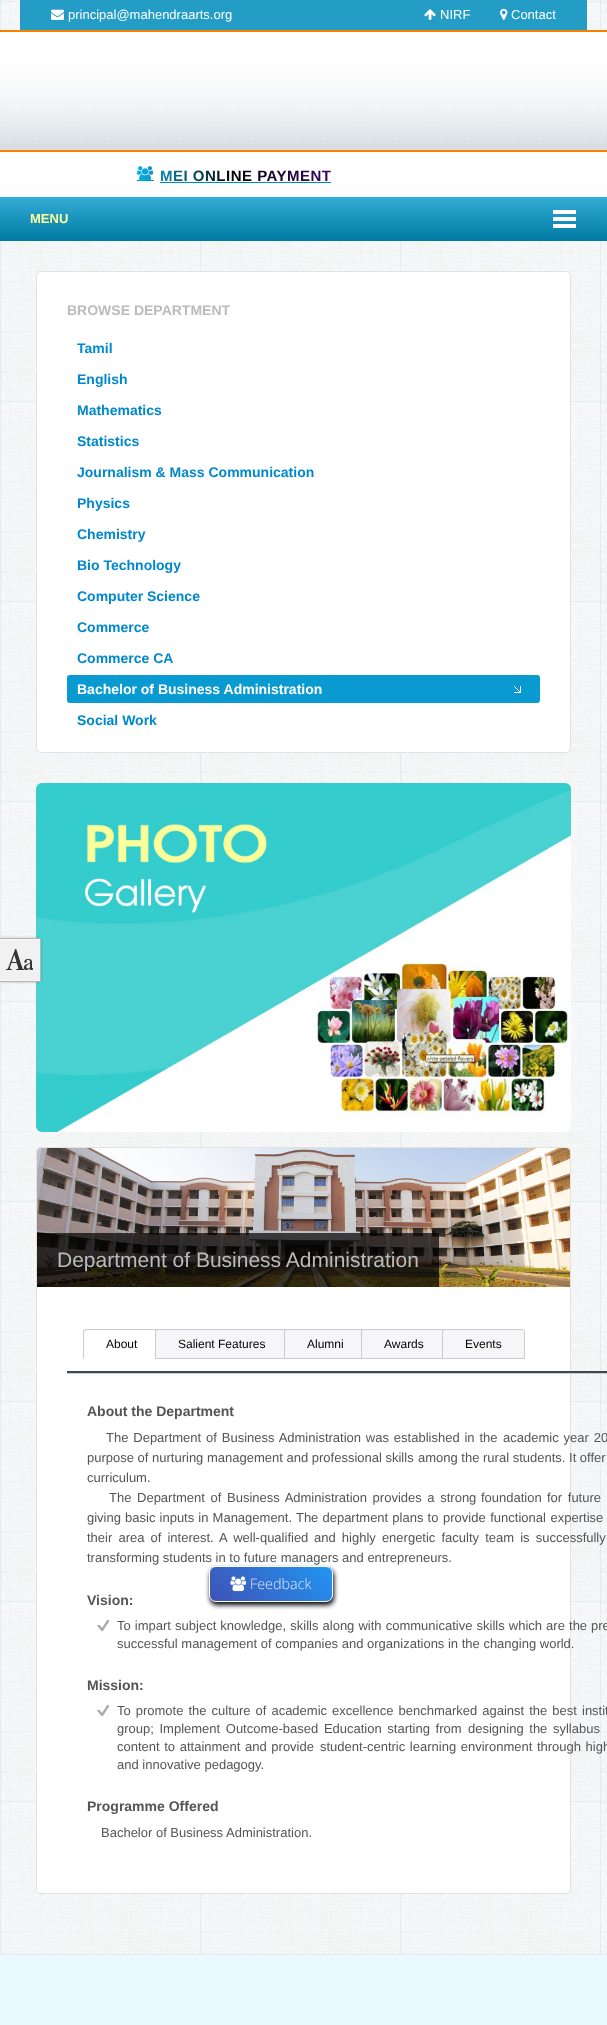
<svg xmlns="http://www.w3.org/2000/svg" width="607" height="2025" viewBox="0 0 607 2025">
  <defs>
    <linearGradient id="g1" gradientUnits="userSpaceOnUse" x1="137" y1="176" x2="331" y2="176"><stop offset="0" stop-color="rgb(9,178,234)"/><stop offset="0.5" stop-color="rgb(0,0,0)"/><stop offset="1" stop-color="rgb(51,8,103)"/></linearGradient>
    <linearGradient id="g2" gradientUnits="userSpaceOnUse" x1="304" y1="197" x2="304" y2="241"><stop offset="0" stop-color="rgb(51,173,214)"/><stop offset="1" stop-color="rgb(0,122,163)"/></linearGradient>
    <clipPath id="clip1"><path d="M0 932H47V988H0ZM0 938H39C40 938 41 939 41 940V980C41 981 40 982 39 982H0Z" clip-rule="evenodd"/></clipPath>
    <clipPath id="clip2"><rect x="209" y="1566" width="124" height="36" rx="7"/></clipPath>
    <linearGradient id="g3" gradientUnits="userSpaceOnUse" x1="232" y1="1623" x2="310" y2="1545"><stop offset="0" stop-color="rgb(63,81,181)"/><stop offset="1" stop-color="rgb(33,150,243)"/></linearGradient>
  </defs>
  <rect width="100%" height="100%" fill="rgb(255,255,255)"/>
  <image x="0" y="0" width="607" height="1954" href="pic1.png"/>
  <rect x="20" y="0" width="567" height="30" fill="rgb(35,157,198)"/>
  <image x="51" y="9" width="13" height="11" href="pic2.png"/>
  <text x="68" y="19" font-family="Liberation Sans" font-size="13" fill="rgb(255,255,255)">principal@mahendraarts.org</text>
  <image x="424" y="9" width="12" height="11" href="pic3.png"/>
  <text x="440" y="19" font-family="Liberation Sans" font-size="13" fill="rgb(255,255,255)">NIRF</text>
  <image x="500" y="8" width="8" height="12" href="pic4.png"/>
  <text x="511" y="19" font-family="Liberation Sans" font-size="13" fill="rgb(255,255,255)">Contact</text>
  <image x="0" y="30" width="607" height="167" href="pic5.png"/>
  <rect x="137" y="180" width="17" height="1" fill="rgb(0,136,204)"/>
  <image x="137" y="166" width="17" height="16" href="pic6.png"/>
  <text x="160" y="181" font-family="Liberation Sans" font-size="15" font-weight="bold" letter-spacing="0.5" fill="url(#g1)">MEI ONLINE PAYMENT</text>
  <rect x="160" y="182" width="171" height="1" fill="rgb(0,136,204)"/>
  <rect x="0" y="197" width="607" height="44" fill="url(#g2)"/>
  <image x="553" y="210" width="23" height="18" href="pic7.png"/>
  <text x="30" y="223" font-family="Liberation Sans" font-size="13" font-weight="bold" fill="rgb(255,255,153)">MENU</text>
  <image x="36" y="783" width="535" height="349" href="pic10.png"/>
  <g clip-path="url(#clip1)">
    <rect x="0" y="938" width="41" height="44" rx="2" fill="rgba(24,24,24,0.25)" filter="blur(1.5px)"/>
  </g>
  <path d="M0 938H39C40 938 41 939 41 940V980C41 981 40 982 39 982H0Z" fill="rgba(240,240,240,0.95)"/>
  <rect x="0" y="938" width="40" height="1" fill="rgb(183,183,183)"/>
  <rect x="40" y="939" width="1" height="42" fill="rgb(183,183,183)"/>
  <rect x="0" y="981" width="40" height="1" fill="rgb(183,183,183)"/>
  <rect x="0" y="939" width="40" height="1" fill="rgb(247,247,247)"/>
  <rect x="39" y="939" width="1" height="42" fill="rgb(247,247,247)"/>
  <rect x="0" y="980" width="40" height="1" fill="rgb(247,247,247)"/>
  <rect x="36" y="940" width="4" height="40" fill="rgba(240,240,240,0.95)"/>
  <image x="6" y="949" width="27" height="21" href="pic8.png"/>
  <rect x="36.5" y="271.5" width="534" height="481" rx="4.5" fill="rgb(255,255,255)" stroke="rgb(226,226,226)"/>
  <text x="67" y="315" font-family="Liberation Sans" font-size="14" font-weight="bold" fill="rgb(187,187,187)">BROWSE DEPARTMENT</text>
  <g font-family="Liberation Sans" font-size="14" font-weight="bold" fill="rgb(0,136,204)">
    <text x="77" y="353">Tamil</text>
    <text x="77" y="384">English</text>
    <text x="77" y="415">Mathematics</text>
    <text x="77" y="446">Statistics</text>
    <text x="77" y="477">Journalism &amp; Mass Communication</text>
    <text x="77" y="508">Physics</text>
    <text x="77" y="539">Chemistry</text>
    <text x="77" y="570">Bio Technology</text>
    <text x="77" y="601">Computer Science</text>
    <text x="77" y="632">Commerce</text>
    <text x="77" y="663">Commerce CA</text>
  </g>
  <rect x="67" y="675" width="473" height="28" rx="3" fill="rgb(9,154,209)"/>
  <image x="514" y="686" width="7" height="7" href="pic9.png"/>
  <text x="77" y="694" font-family="Liberation Sans" font-size="14" font-weight="bold" fill="rgb(255,255,255)">Bachelor of Business Administration</text>
  <text x="77" y="725" font-family="Liberation Sans" font-size="14" font-weight="bold" fill="rgb(0,136,204)">Social Work</text>
  <rect x="36.5" y="1147.5" width="534" height="746" rx="4.5" fill="rgb(255,255,255)" stroke="rgb(226,226,226)"/>
  <image x="37" y="1148" width="533" height="139" href="pic11.png"/>
  <rect x="37" y="1233" width="402" height="54" fill="rgba(0,0,0,0.7)"/>
  <text x="57" y="1267" font-family="Liberation Sans" font-size="21" fill="rgb(187,187,187)">Department of Business Administration</text>
  <rect x="67" y="1371" width="540" height="2" fill="rgb(65,71,80)"/>
  <path d="M86 1329L84 1330L85 1331L86 1330H156C157 1330 159 1331 159 1332C159 1330 158 1329 156 1329Z" fill="rgb(204,204,204)"/>
  <path d="M83 1359L84 1358V1332L84.5 1330.5L84 1330C83 1330 83 1331 83 1332Z" fill="rgb(204,204,204)"/>
  <text x="106" y="1348" font-family="Liberation Sans" font-size="12" fill="rgb(0,0,0)">About</text>
  <path d="M158 1329H285C286.5 1329 288 1330.5 288 1332V1359H155V1332C155 1330.5 156.5 1329 158 1329Z" fill="rgb(246,246,249)"/>
  <path d="M158 1329H285C287 1329 288 1330 288 1332V1359H155V1332C155 1330 156 1329 158 1329ZM158 1330H285C287 1330 288 1331 288 1332V1358H156V1332C156 1331 157 1330 158 1330Z" fill="rgb(204,204,204)" fill-rule="evenodd"/>
  <text x="178" y="1348" font-family="Liberation Sans" font-size="12" fill="rgb(0,0,0)">Salient Features</text>
  <path d="M287 1329H362C363.5 1329 365 1330.5 365 1332V1359H284V1332C284 1330.5 285.5 1329 287 1329Z" fill="rgb(246,246,249)"/>
  <path d="M287 1329H362C364 1329 365 1330 365 1332V1359H284V1332C284 1330 285 1329 287 1329ZM287 1330H362C364 1330 365 1331 365 1332V1358H285V1332C285 1331 286 1330 287 1330Z" fill="rgb(204,204,204)" fill-rule="evenodd"/>
  <text x="307" y="1348" font-family="Liberation Sans" font-size="12" fill="rgb(0,0,0)">Alumni</text>
  <path d="M364 1329H443C444.5 1329 446 1330.5 446 1332V1359H361V1332C361 1330.5 362.5 1329 364 1329Z" fill="rgb(246,246,249)"/>
  <path d="M364 1329H443C445 1329 446 1330 446 1332V1359H361V1332C361 1330 362 1329 364 1329ZM364 1330H443C445 1330 446 1331 446 1332V1358H362V1332C362 1331 363 1330 364 1330Z" fill="rgb(204,204,204)" fill-rule="evenodd"/>
  <text x="384" y="1348" font-family="Liberation Sans" font-size="12" fill="rgb(0,0,0)">Awards</text>
  <path d="M445 1329.5H522C523.5 1329.5 524.5 1330.5 524.5 1332V1358.5H442.5V1332C442.5 1330.5 443.5 1329.5 445 1329.5Z" fill="rgb(246,246,249)" stroke="rgb(204,204,204)"/>
  <text x="465" y="1348" font-family="Liberation Sans" font-size="12" fill="rgb(0,0,0)">Events</text>
  <rect x="67" y="1373" width="540" height="1" fill="rgb(204,204,204)"/>
  <text x="87" y="1416" font-family="Liberation Sans" font-size="14" font-weight="bold" fill="rgb(85,85,85)">About the Department</text>
  <g font-family="Liberation Sans" font-size="13" fill="rgb(85,85,85)">
    <text x="106" y="1442" word-spacing="1.25">The Department of Business Administration was established in the</text>
    <text x="503" y="1442" word-spacing="1.25">academic year 20</text>
    <text x="87" y="1462">purpose of nurturing management and professional skills</text>
    <text x="418" y="1462">among the rural students. It offer</text>
    <text x="87" y="1482">curriculum.</text>
    <text x="109" y="1502" word-spacing="2">The Department of Business Administration provides a strong</text>
    <text x="481" y="1502">foundation</text>
    <text x="547" y="1502" word-spacing="2">for future</text>
    <text x="87" y="1522" word-spacing="0.5">giving basic inputs in Management. The department plans to</text>
    <text x="443" y="1522" word-spacing="1">provide functional expertise</text>
    <text x="87" y="1542" word-spacing="2.5">their area of interest. A well-qualified</text>
    <text x="314" y="1542" word-spacing="2.5">and highly energetic faculty team is successfully</text>
    <text x="87" y="1562">transforming students in to future managers and entrepreneurs.</text>
  </g>
  <text x="87" y="1605" font-family="Liberation Sans" font-size="14" font-weight="bold" fill="rgb(85,85,85)">Vision:</text>
  <image x="97" y="1620" width="12" height="11" href="pic12.png"/>
  <g font-family="Liberation Sans" font-size="13" fill="rgb(85,85,85)">
    <text x="117" y="1630" word-spacing="0.5">To impart subject knowledge, skills along with communicative skills which are the</text>
    <text x="591" y="1630">pre</text>
    <text x="117" y="1648">successful management of companies and organizations in the changing world.</text>
  </g>
  <text x="87" y="1690" font-family="Liberation Sans" font-size="14" font-weight="bold" fill="rgb(85,85,85)">Mission:</text>
  <image x="97" y="1705" width="12" height="11" href="pic12.png"/>
  <g font-family="Liberation Sans" font-size="13" fill="rgb(85,85,85)">
    <text x="117" y="1715" word-spacing="1.4">To promote the culture of academic excellence benchmarked against the best</text>
    <text x="582" y="1715" word-spacing="1.4">instit</text>
    <text x="117" y="1733" word-spacing="2">group; Implement Outcome-based Education starting from</text>
    <text x="468" y="1733" word-spacing="2">designing the syllabus</text>
    <text x="117" y="1751" word-spacing="1">content to attainment and provide</text>
    <text x="320" y="1751" word-spacing="1">student-centric learning environment through high</text>
    <text x="117" y="1769">and innovative pedagogy.</text>
  </g>
  <text x="87" y="1811" font-family="Liberation Sans" font-size="14" font-weight="bold" fill="rgb(85,85,85)">Programme Offered</text>
  <text x="101" y="1837" font-family="Liberation Sans" font-size="13" fill="rgb(85,85,85)">Bachelor of Business Administration.</text>
  <rect x="0" y="1955" width="607" height="70" fill="rgb(234,249,255)"/>
  <rect x="0" y="1954" width="607" height="1" fill="rgb(224,234,240)"/>
  <rect x="210" y="1569" width="124" height="36" rx="7" fill="rgb(0,0,0)" filter="blur(2.5px)"/>
  <g clip-path="url(#clip2)">
    <rect x="210" y="1567" width="122" height="34" fill="url(#g3)"/>
  </g>
  <rect x="209.5" y="1566.5" width="123" height="35" rx="6.5" fill="none" stroke="rgb(255,255,255)"/>
  <image x="230" y="1576" width="17" height="16" href="pic13.png"/>
  <text x="250" y="1589" font-family="Noto Sans" font-size="14.5" font-weight="200" fill="rgb(255,255,255)">Feedback</text>
</svg>
